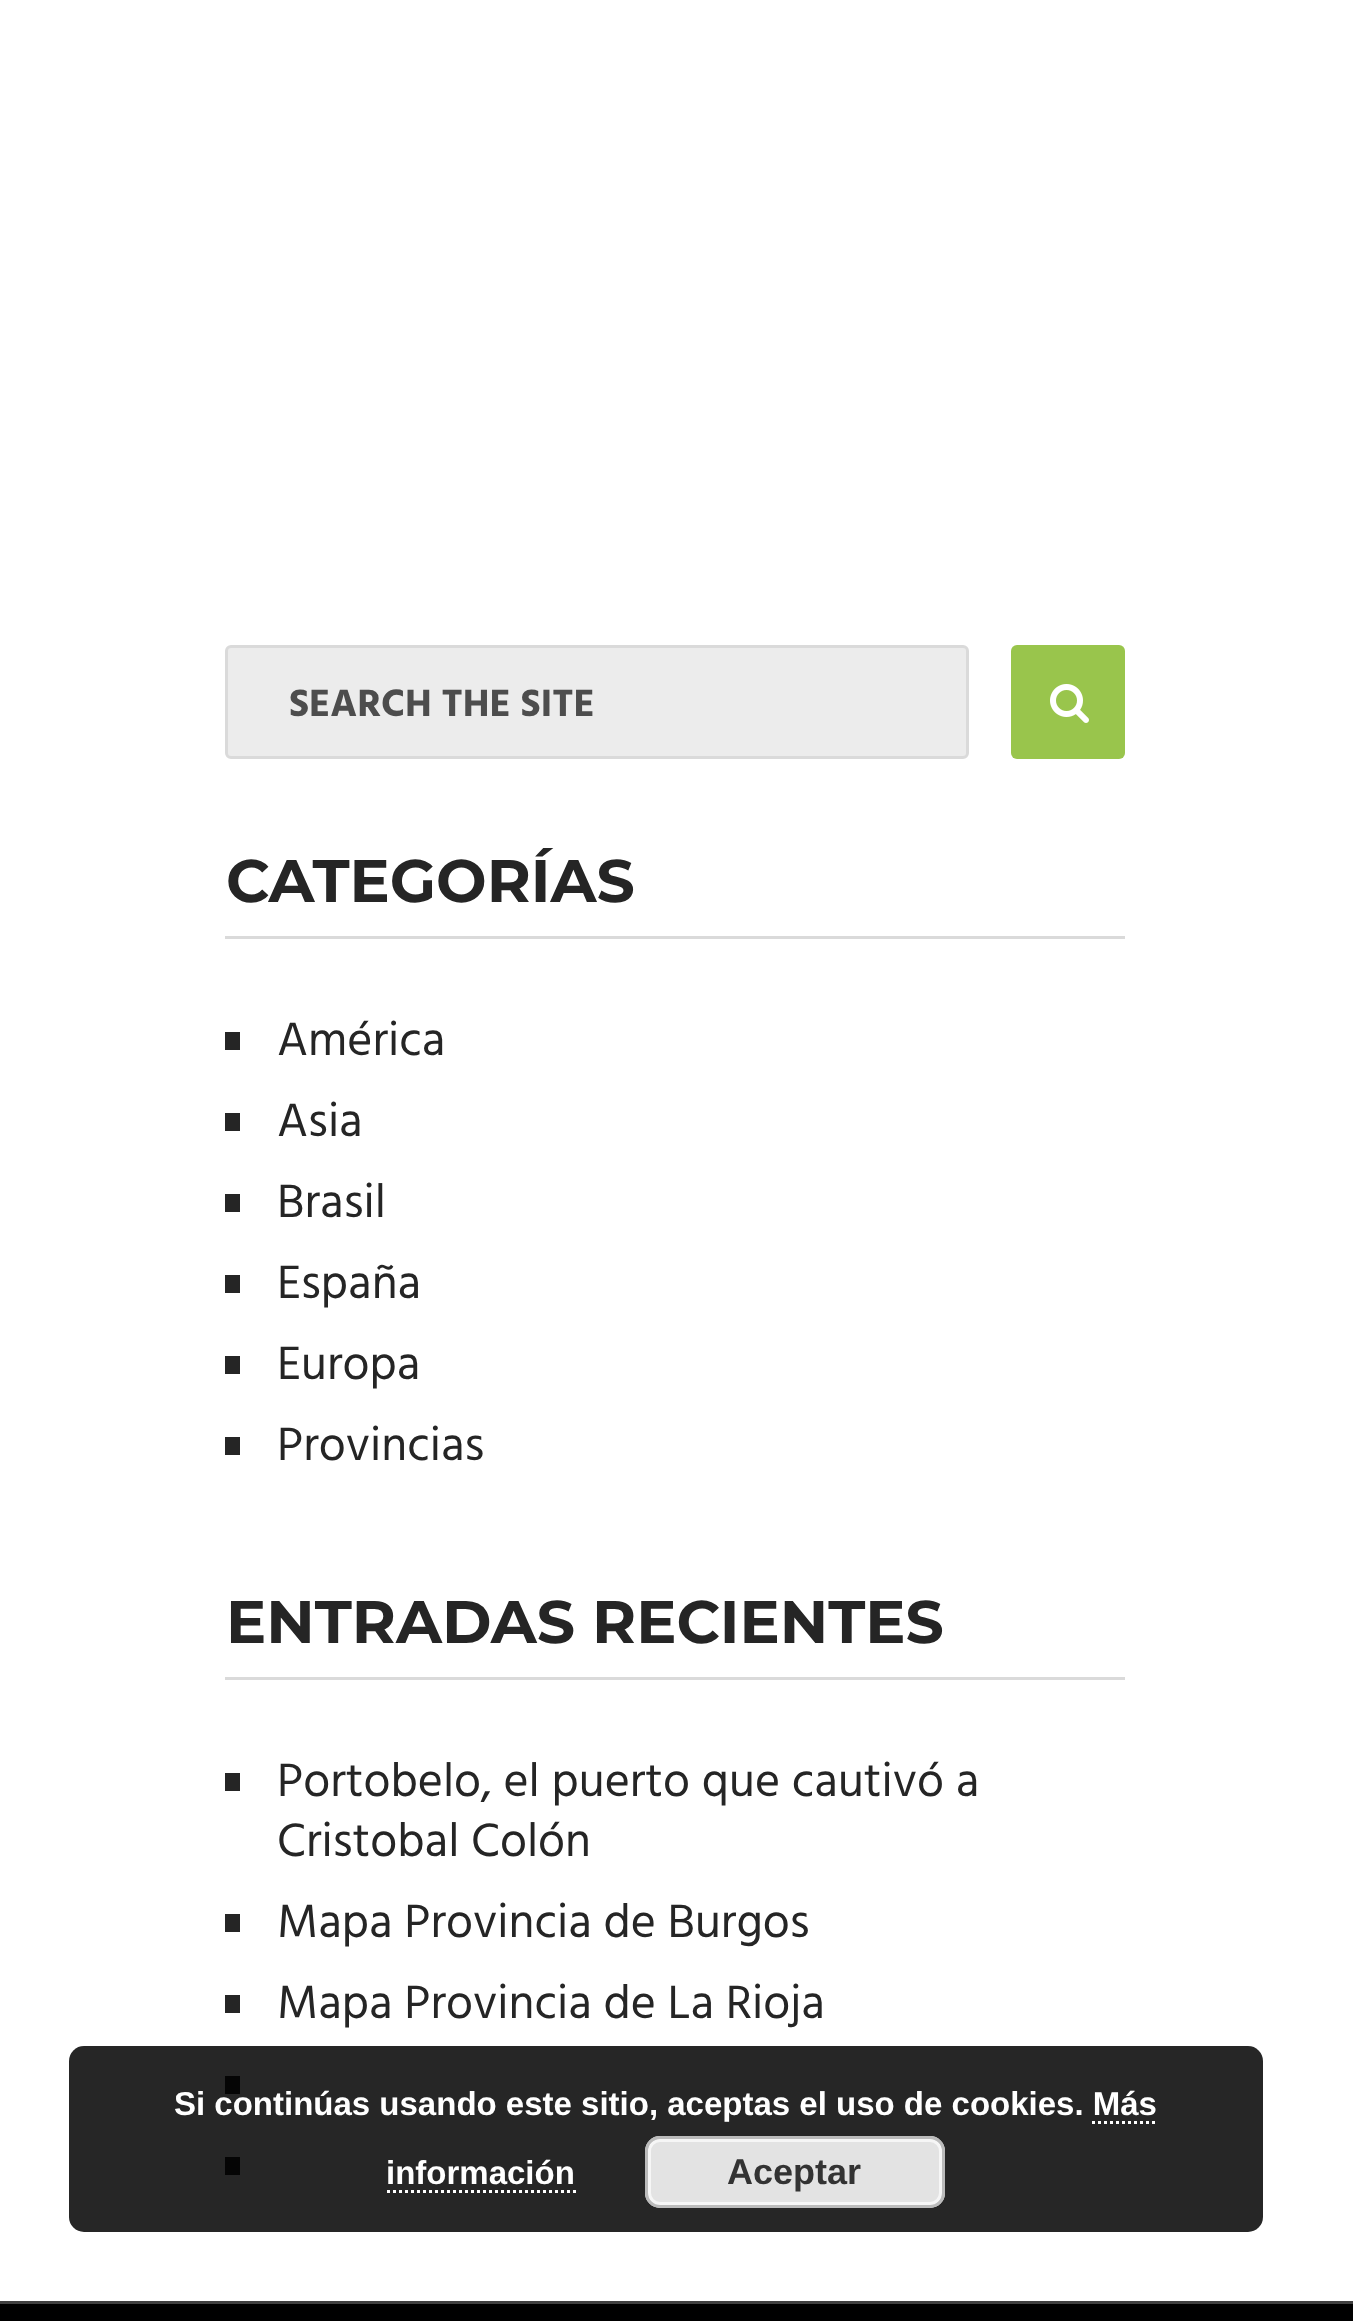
<svg xmlns="http://www.w3.org/2000/svg" width="1353" height="2321" viewBox="0 0 1353 2321">
  <rect width="100%" height="100%" fill="rgb(255,255,255)"/>
  <rect x="226.5" y="646.5" width="741" height="111" rx="4.5" fill="rgb(236,236,236)" stroke="rgb(218,218,218)" stroke-width="3"/>
  <text x="289" y="716" font-family="Hind" font-size="39" font-weight="bold" fill="rgb(77,77,77)">SEARCH THE SITE</text>
  <rect x="1011" y="645" width="114" height="114" rx="6" fill="rgb(153,197,76)"/>
  <image x="1050" y="684" width="39" height="39" href="pic1.png"/>
  <rect x="225" y="936" width="900" height="3" fill="rgb(218,218,218)"/>
  <text x="226" y="902" font-family="Montserrat" font-size="60" font-weight="bold" fill="rgb(37,37,37)">CATEGORÍAS</text>
  <rect x="225" y="1032" width="15" height="18" fill="rgb(37,37,37)"/>
  <text x="277" y="1055" font-family="Hind" font-size="48" fill="rgb(37,37,37)">América</text>
  <rect x="225" y="1113" width="15" height="18" fill="rgb(37,37,37)"/>
  <text x="277" y="1136" font-family="Hind" font-size="48" fill="rgb(37,37,37)">Asia</text>
  <rect x="225" y="1194" width="15" height="18" fill="rgb(37,37,37)"/>
  <text x="277" y="1217" font-family="Hind" font-size="48" fill="rgb(37,37,37)">Brasil</text>
  <rect x="225" y="1275" width="15" height="18" fill="rgb(37,37,37)"/>
  <text x="277" y="1298" font-family="Hind" font-size="48" fill="rgb(37,37,37)">España</text>
  <rect x="225" y="1356" width="15" height="18" fill="rgb(37,37,37)"/>
  <text x="277" y="1379" font-family="Hind" font-size="48" fill="rgb(37,37,37)">Europa</text>
  <rect x="225" y="1437" width="15" height="18" fill="rgb(37,37,37)"/>
  <text x="277" y="1460" font-family="Hind" font-size="48" fill="rgb(37,37,37)">Provincias</text>
  <rect x="225" y="1677" width="900" height="3" fill="rgb(218,218,218)"/>
  <text x="226" y="1643" font-family="Montserrat" font-size="60" font-weight="bold" fill="rgb(37,37,37)">ENTRADAS RECIENTES</text>
  <rect x="225" y="1773" width="15" height="18" fill="rgb(37,37,37)"/>
  <g font-family="Hind" font-size="48" fill="rgb(37,37,37)">
    <text>
      <tspan x="277" y="1796">Portobelo, el puerto que cautivó a</tspan>
      <tspan x="277" y="1856">Cristobal Colón</tspan>
    </text>
  </g>
  <rect x="225" y="1914" width="15" height="18" fill="rgb(37,37,37)"/>
  <text x="277" y="1937" font-family="Hind" font-size="48" fill="rgb(37,37,37)">Mapa Provincia de Burgos</text>
  <rect x="225" y="1995" width="15" height="18" fill="rgb(37,37,37)"/>
  <text x="277" y="2018" font-family="Hind" font-size="48" fill="rgb(37,37,37)">Mapa Provincia de La Rioja</text>
  <rect x="225" y="2076" width="15" height="18" fill="rgb(37,37,37)"/>
  <rect x="225" y="2157" width="15" height="18" fill="rgb(37,37,37)"/>
  <rect x="69" y="2046" width="1194" height="186" rx="15" fill="rgba(0,0,0,0.85)"/>
  <g font-family="Liberation Sans" font-size="33" font-weight="bold" fill="rgb(255,255,255)">
    <text x="174" y="2115">Si continúas usando este sitio, aceptas el uso de cookies. Más</text>
    <text x="386" y="2184">información</text>
  </g>
  <path d="M1092 2122.5H1158" fill="none" stroke="rgb(255,255,255)" stroke-width="3" stroke-dasharray="3 3"/>
  <path d="M387 2191.5H576" fill="none" stroke="rgb(255,255,255)" stroke-width="3" stroke-dasharray="3 3"/>
  <rect x="645" y="2136" width="300" height="72" rx="15" fill="rgb(227,227,227)"/>
  <rect x="649.5" y="2140.5" width="291" height="63" rx="10.5" fill="none" stroke="rgb(246,246,246)" stroke-width="3"/>
  <rect x="646.5" y="2137.5" width="297" height="69" rx="13.5" fill="none" stroke="rgb(187,187,187)" stroke-width="3"/>
  <text x="727" y="2184" font-family="Liberation Sans" font-size="36" font-weight="bold" fill="rgb(51,51,51)">Aceptar</text>
  <rect x="0" y="2304" width="1353" height="17" fill="rgb(0,0,0)"/>
  <rect x="0" y="2301" width="1353" height="3" fill="rgb(64,64,64)"/>
</svg>
